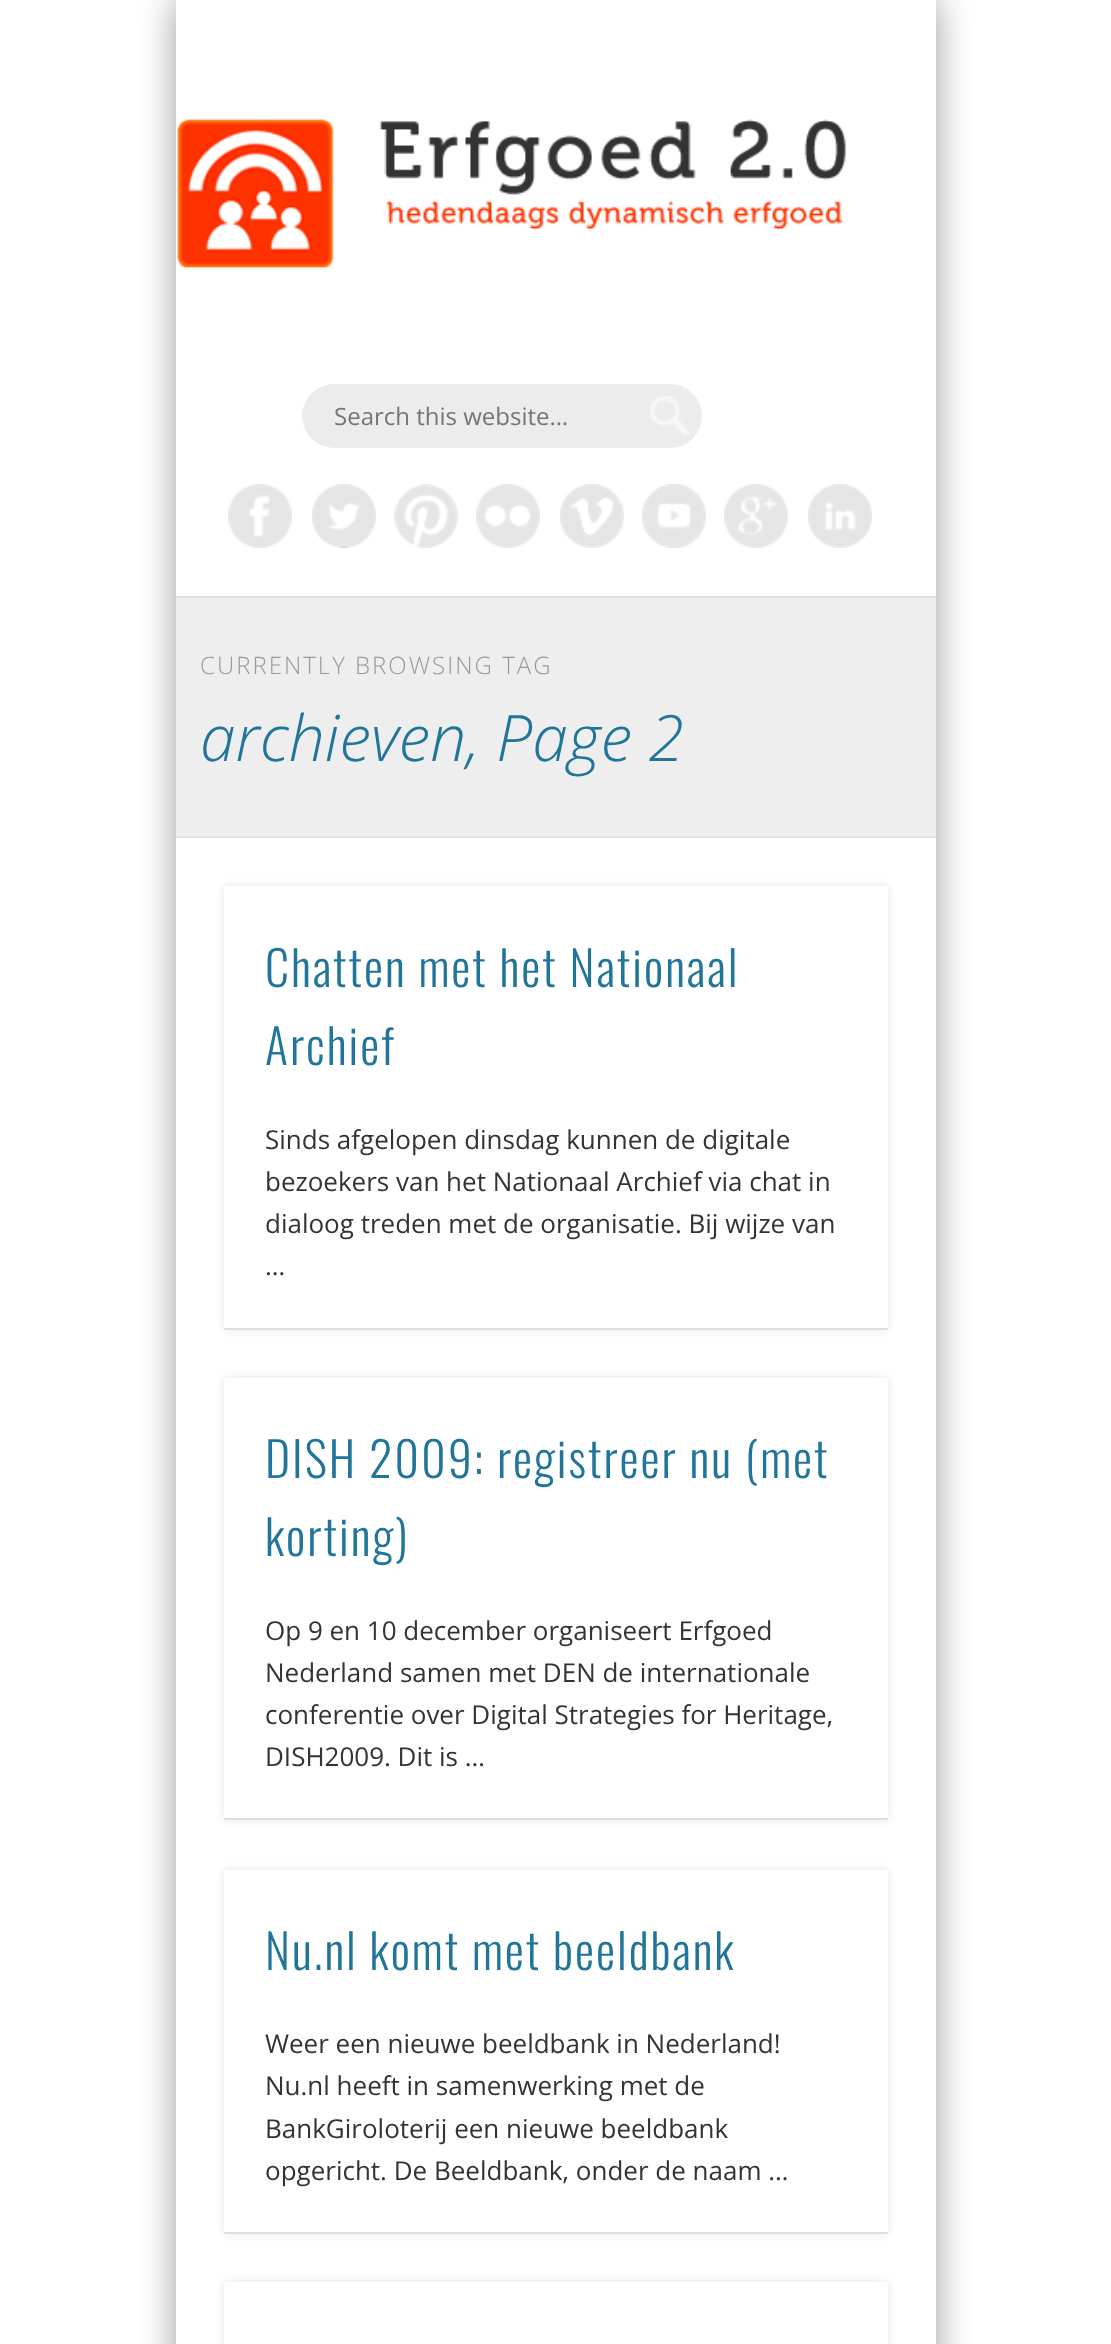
<svg xmlns="http://www.w3.org/2000/svg" width="1111" height="2344" viewBox="0 0 1111 2344">
  <defs>
    <clipPath id="clip1"><path d="M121 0H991V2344H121ZM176 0H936V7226H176Z" clip-rule="evenodd"/></clipPath>
    <clipPath id="clip2"><path d="M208 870H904V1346H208ZM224 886H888V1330H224Z" clip-rule="evenodd"/></clipPath>
    <clipPath id="clip3"><path d="M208 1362H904V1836H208ZM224 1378H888V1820H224Z" clip-rule="evenodd"/></clipPath>
    <clipPath id="clip4"><path d="M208 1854H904V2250H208ZM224 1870H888V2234H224Z" clip-rule="evenodd"/></clipPath>
    <clipPath id="clip5"><path d="M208 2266H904V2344H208ZM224 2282H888V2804H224Z" clip-rule="evenodd"/></clipPath>
  </defs>
  <rect width="100%" height="100%" fill="rgb(255,255,255)"/>
  <g clip-path="url(#clip1)">
    <rect x="176" y="0" width="760" height="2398" fill="rgba(0,0,0,0.4)" filter="blur(18px)"/>
  </g>
  <image x="177" y="119" width="669" height="149" href="pic1.png"/>
  <rect x="302" y="384" width="400" height="64" rx="32" fill="rgb(236,236,236)"/>
  <image x="650" y="396" width="40" height="40" href="pic2.png"/>
  <text x="334" y="425" font-family="Open Sans" font-size="24" fill="rgb(117,117,117)">Search this website…</text>
  <image x="228" y="484" width="64" height="64" href="pic3.png"/>
  <image x="312" y="484" width="64" height="64" href="pic4.png"/>
  <image x="394" y="484" width="64" height="64" href="pic5.png"/>
  <image x="476" y="484" width="64" height="64" href="pic6.png"/>
  <image x="560" y="484" width="64" height="64" href="pic7.png"/>
  <image x="642" y="484" width="64" height="64" href="pic8.png"/>
  <image x="724" y="484" width="64" height="64" href="pic9.png"/>
  <image x="808" y="484" width="64" height="64" href="pic10.png"/>
  <rect x="176" y="598" width="760" height="238" fill="rgb(238,238,238)"/>
  <rect x="176" y="596" width="760" height="2" fill="rgb(225,225,225)"/>
  <rect x="176" y="836" width="760" height="2" fill="rgb(225,225,225)"/>
  <text x="200" y="674" font-family="Open Sans" font-size="24" font-weight="300" letter-spacing="2" fill="rgb(153,153,153)">CURRENTLY BROWSING TAG</text>
  <text x="200" y="761" font-family="Open Sans" font-size="64" font-weight="300" font-style="italic" fill="rgb(33,117,155)">archieven, Page 2</text>
  <g clip-path="url(#clip2)">
    <rect x="224" y="886" width="664" height="444" fill="rgba(0,0,0,0.1)" filter="blur(5px)"/>
  </g>
  <rect x="224" y="1328" width="664" height="2" fill="rgb(222,222,222)"/>
  <g font-family="Oswald" font-size="48" font-weight="300" letter-spacing="2" fill="rgb(33,117,155)">
    <text>
      <tspan x="265" y="987">Chatten met het Nationaal</tspan>
      <tspan x="265" y="1065">Archief</tspan>
    </text>
  </g>
  <g font-family="Open Sans" font-size="26" fill="rgb(51,51,51)">
    <text>
      <tspan x="265" y="1149">Sinds afgelopen dinsdag kunnen de digitale</tspan>
      <tspan x="265" y="1191">bezoekers van het Nationaal Archief via chat in</tspan>
      <tspan x="265" y="1233">dialoog treden met de organisatie. Bij wijze van</tspan>
      <tspan x="265" y="1275">…</tspan>
    </text>
  </g>
  <g clip-path="url(#clip3)">
    <rect x="224" y="1378" width="664" height="442" fill="rgba(0,0,0,0.1)" filter="blur(5px)"/>
  </g>
  <rect x="224" y="1818" width="664" height="2" fill="rgb(222,222,222)"/>
  <g font-family="Oswald" font-size="48" font-weight="300" letter-spacing="2" fill="rgb(33,117,155)">
    <text>
      <tspan x="265" y="1478">DISH 2009: registreer nu (met</tspan>
      <tspan x="265" y="1556">korting)</tspan>
    </text>
  </g>
  <g font-family="Open Sans" font-size="26" fill="rgb(51,51,51)">
    <text>
      <tspan x="265" y="1640">Op 9 en 10 december organiseert Erfgoed</tspan>
      <tspan x="265" y="1682">Nederland samen met DEN de internationale</tspan>
      <tspan x="265" y="1724">conferentie over Digital Strategies for Heritage,</tspan>
      <tspan x="265" y="1766">DISH2009. Dit is …</tspan>
    </text>
  </g>
  <g clip-path="url(#clip4)">
    <rect x="224" y="1870" width="664" height="364" fill="rgba(0,0,0,0.1)" filter="blur(5px)"/>
  </g>
  <rect x="224" y="2232" width="664" height="2" fill="rgb(222,222,222)"/>
  <text x="265" y="1970" font-family="Oswald" font-size="48" font-weight="300" letter-spacing="2" fill="rgb(33,117,155)">Nu.nl komt met beeldbank</text>
  <g font-family="Open Sans" font-size="26" fill="rgb(51,51,51)">
    <text>
      <tspan x="265" y="2053">Weer een nieuwe beeldbank in Nederland!</tspan>
      <tspan x="265" y="2095">Nu.nl heeft in samenwerking met de</tspan>
      <tspan x="265" y="2138">BankGiroloterij een nieuwe beeldbank</tspan>
      <tspan x="265" y="2180">opgericht. De Beeldbank, onder de naam …</tspan>
    </text>
  </g>
  <g clip-path="url(#clip5)">
    <rect x="224" y="2282" width="664" height="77" fill="rgba(0,0,0,0.1)" filter="blur(5px)"/>
  </g>
</svg>
